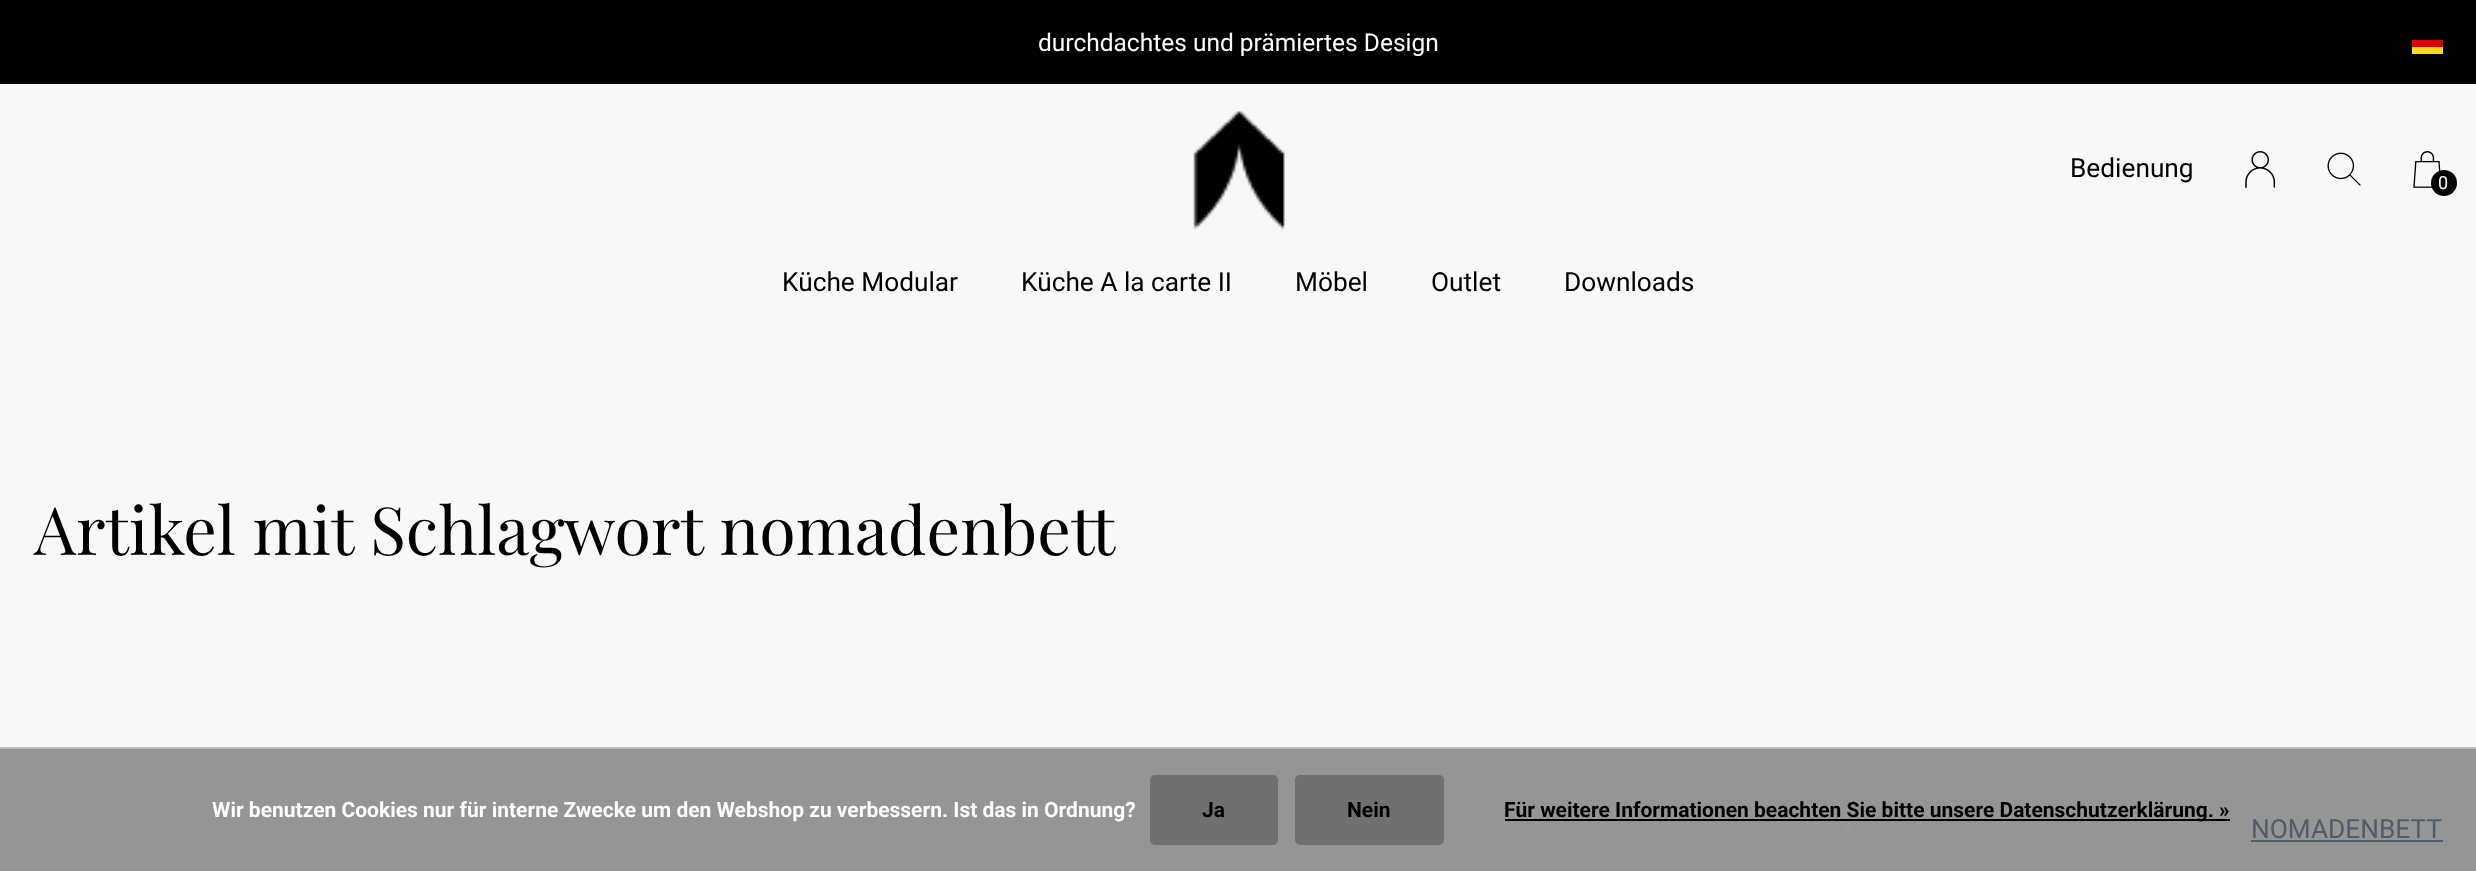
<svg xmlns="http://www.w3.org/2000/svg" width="2476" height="871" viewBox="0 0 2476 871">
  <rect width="100%" height="100%" fill="rgb(248,248,248)"/>
  <rect x="0" y="0" width="2476" height="84" fill="rgb(0,0,0)"/>
  <text x="1038" y="51" font-family="Roboto" font-size="24.5" fill="rgb(255,250,250)">durchdachtes und prämiertes Design</text>
  <rect x="2412" y="40" width="31" height="7" fill="rgb(219,0,0)"/>
  <rect x="2412" y="47" width="31" height="7" fill="rgb(246,217,40)"/>
  <image x="1193" y="111" width="92" height="119" href="pic1.png"/>
  <text x="2070" y="177" font-family="Roboto" font-size="26.25" fill="rgb(0,0,0)">Bedienung</text>
  <image x="2245" y="151" width="31" height="37" href="pic2.png"/>
  <image x="2327" y="152" width="34" height="34" href="pic3.png"/>
  <image x="2413" y="151" width="28" height="37" href="pic4.png"/>
  <circle cx="2444" cy="183" r="13" fill="rgb(0,0,0)"/>
  <text x="2438" y="189" font-family="Roboto" font-size="18" fill="rgb(255,250,250)">0</text>
  <g font-family="Roboto" font-size="26.25" fill="rgb(0,0,0)">
    <text x="782" y="291">Küche Modular</text>
    <text x="1021" y="291">Küche A la carte II</text>
    <text x="1295" y="291">Möbel</text>
    <text x="1431" y="291">Outlet</text>
    <text x="1564" y="291">Downloads</text>
  </g>
  <text x="34" y="555" font-family="Playfair Display" font-size="66.5" fill="rgb(0,0,0)">Artikel mit Schlagwort nomadenbett</text>
  <rect x="0" y="749" width="2476" height="122" fill="rgb(149,149,149)"/>
  <image x="1845" y="821" width="8" height="14" href="pic5.png"/>
  <text x="2251" y="838" font-family="Roboto" font-size="26.25" fill="rgb(80,92,105)">NOMADENBETT</text>
  <rect x="2251" y="840" width="192" height="2" fill="rgb(80,92,105)"/>
  <rect x="0" y="747" width="2476" height="2" fill="rgb(187,187,187)"/>
  <text x="212" y="817" font-family="Roboto" font-size="21" font-weight="bold" fill="rgb(255,250,250)">Wir benutzen Cookies nur für interne Zwecke um den Webshop zu verbessern. Ist das in Ordnung?</text>
  <rect x="1150" y="775" width="128" height="70" rx="5" fill="rgb(112,112,112)"/>
  <text x="1202" y="817" font-family="Roboto" font-size="21" font-weight="bold" fill="rgb(0,0,0)">Ja</text>
  <rect x="1295" y="775" width="149" height="70" rx="5" fill="rgb(112,112,112)"/>
  <text x="1347" y="817" font-family="Roboto" font-size="21" font-weight="bold" fill="rgb(0,0,0)">Nein</text>
  <rect x="1505" y="819" width="725" height="2" fill="rgb(0,0,0)"/>
  <text x="1504" y="817" font-family="Roboto" font-size="21" font-weight="bold" fill="rgb(0,0,0)">Für weitere Informationen beachten Sie bitte unsere Datenschutzerklärung. »</text>
</svg>
